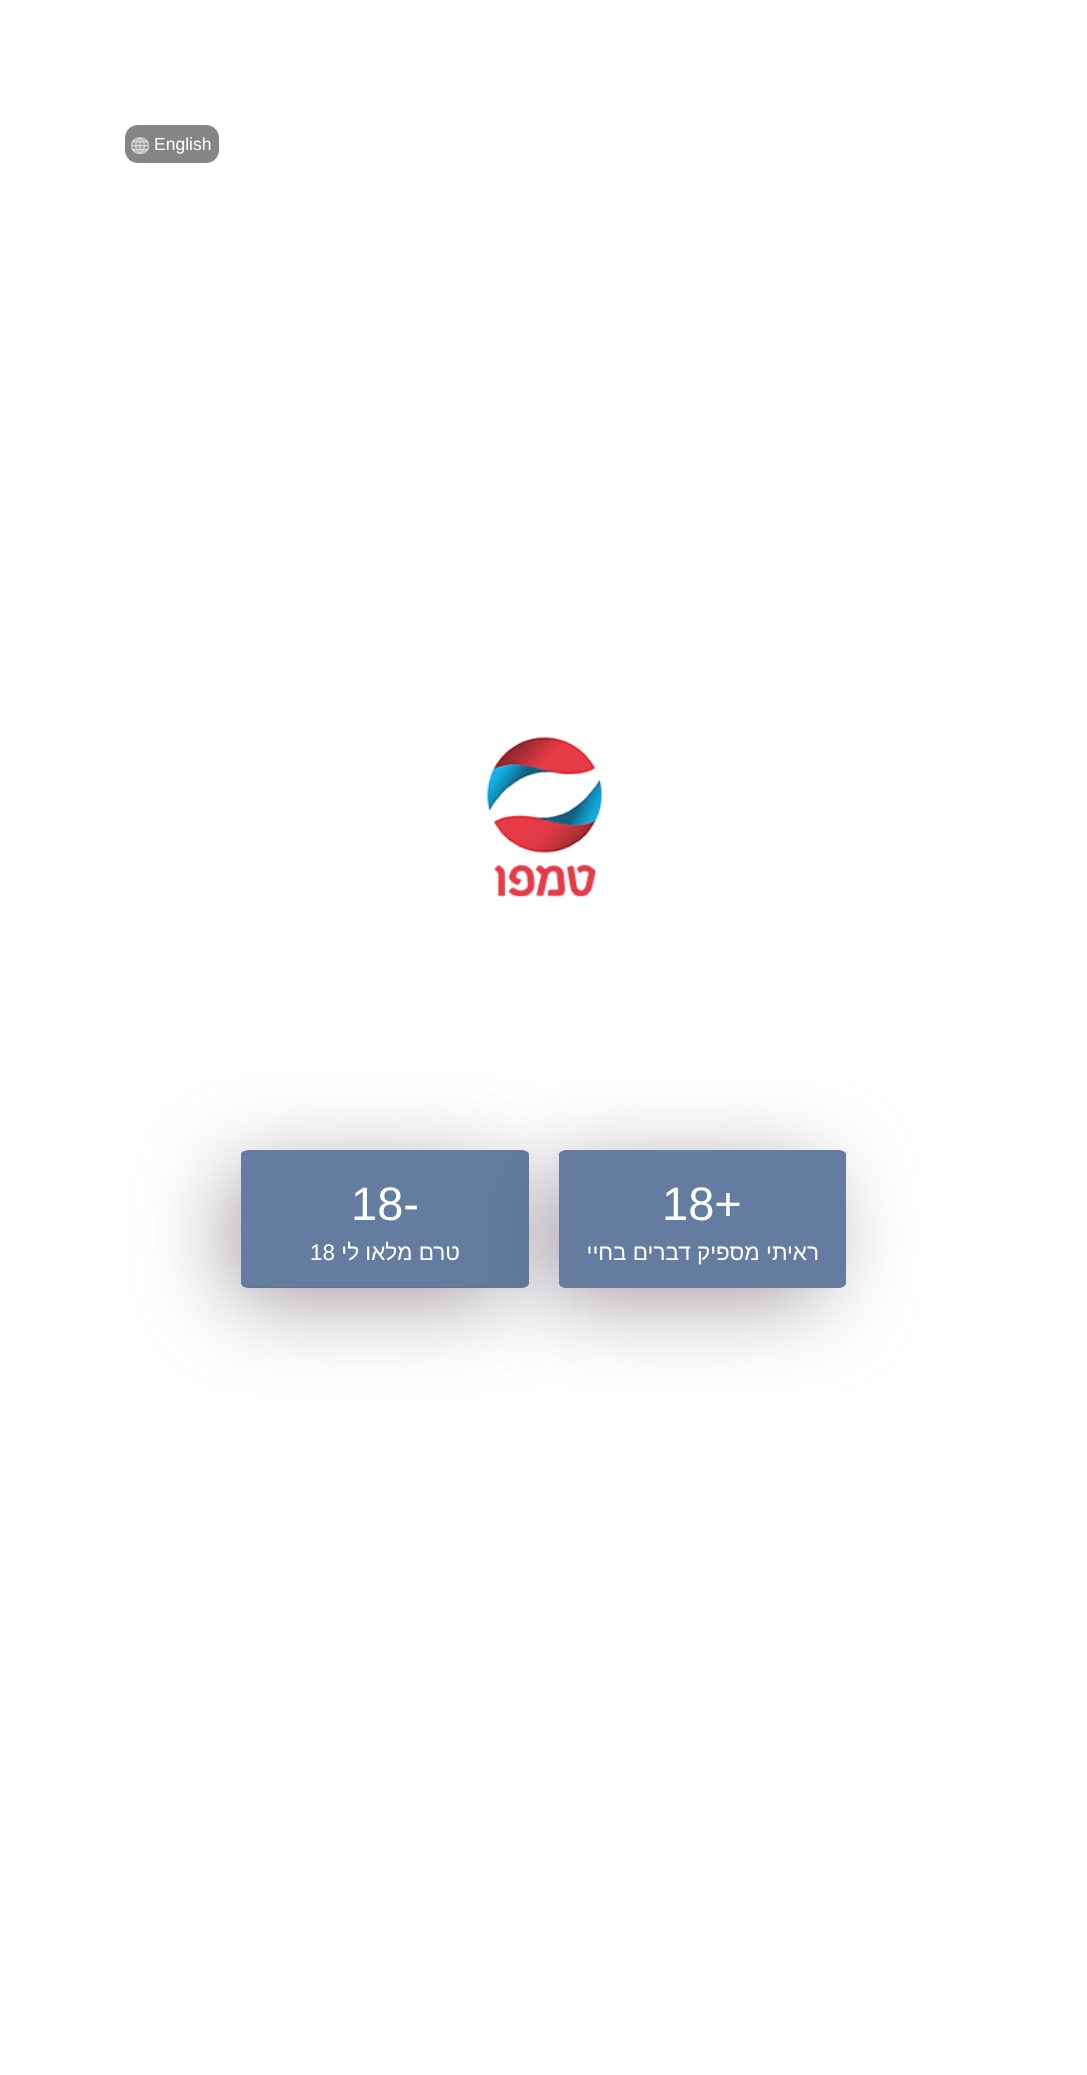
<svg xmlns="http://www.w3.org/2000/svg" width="1087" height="2075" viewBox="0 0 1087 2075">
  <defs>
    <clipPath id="clip1"><path d="M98 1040H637V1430H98ZM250 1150H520C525 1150 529 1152 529 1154V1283.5C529 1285.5 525 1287.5 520 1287.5H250C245 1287.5 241 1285.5 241 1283.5V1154C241 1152 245 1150 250 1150Z" clip-rule="evenodd"/></clipPath>
  </defs>
  <rect width="100%" height="100%" fill="rgb(255,255,255)"/>
  <rect x="125" y="125" width="94" height="38" rx="13" fill="rgb(133,133,133)"/>
  <text x="154" y="150" font-family="Liberation Sans" font-size="17.5" fill="rgb(255,255,255)">English</text>
  <image x="131" y="137" width="18" height="17" href="pic1.png"/>
  <image x="486" y="736" width="117" height="161" href="pic2.png"/>
  <rect x="551" y="1176" width="268" height="118" fill="rgb(148,139,148)" filter="blur(45px)"/>
  <path d="M567 1150H838C842 1150 846 1152 846 1154V1283C846 1286 842 1288 838 1288H567C563 1288 559 1286 559 1283V1154C559 1152 563 1150 567 1150Z" fill="rgb(100,124,160)"/>
  <text x="662" y="1220" font-family="Liberation Sans" font-size="47" fill="rgb(255,255,255)">18+</text>
  <text x="819" y="1260" font-family="Liberation Sans" font-size="22.5" direction="rtl" fill="rgb(255,255,255)">ראיתי מספיק דברים בחיי</text>
  <g clip-path="url(#clip1)">
    <rect x="234" y="1176" width="267" height="118" fill="rgba(112,100,112,0.75)" filter="blur(45px)"/>
  </g>
  <path d="M250 1150H520C525 1150 529 1152 529 1154V1283C529 1286 525 1288 520 1288H250C245 1288 241 1286 241 1283V1154C241 1152 245 1150 250 1150Z" fill="rgba(48,80,128,0.75)"/>
  <text x="351" y="1220" font-family="Liberation Sans" font-size="47" fill="rgb(255,255,255)">18-</text>
  <text x="460" y="1260" font-family="Liberation Sans" font-size="22.5" direction="rtl" fill="rgb(255,255,255)">טרם מלאו לי</text>
  <text x="310" y="1260" font-family="Liberation Sans" font-size="22.5" fill="rgb(255,255,255)">18</text>
</svg>
